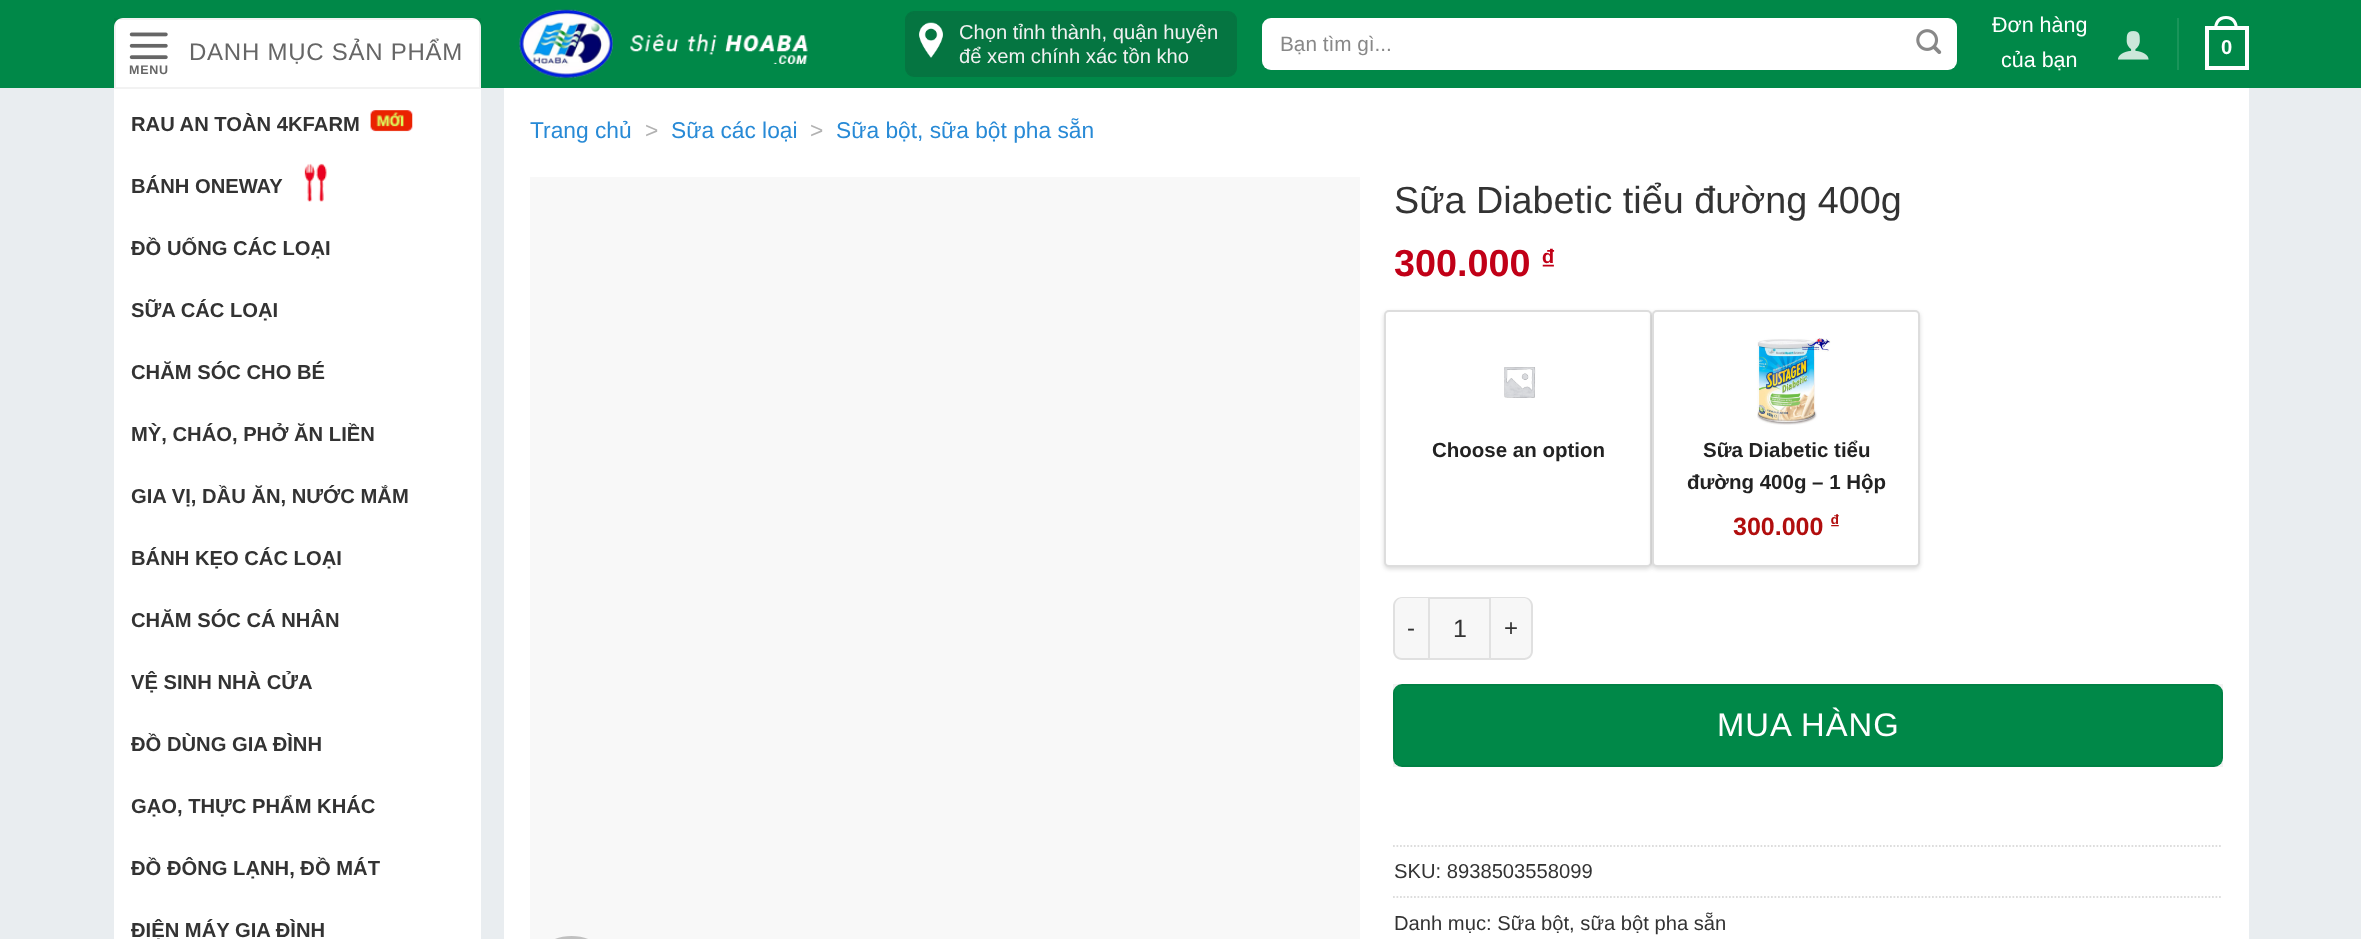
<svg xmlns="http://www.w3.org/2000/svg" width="2361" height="939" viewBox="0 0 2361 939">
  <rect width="100%" height="100%" fill="rgb(233,237,240)"/>
  <rect x="0" y="0" width="2361" height="88" fill="rgb(0,136,72)"/>
  <path d="M123 18H472C477 18 481 22 481 27V89H114V27C114 22 118 18 123 18Z" fill="rgb(255,255,255)"/>
  <rect x="115" y="19" width="365" height="69" fill="none" stroke="rgba(0,0,0,0.05)" stroke-width="2"/>
  <text x="189" y="60" font-family="Liberation Sans" font-size="24" letter-spacing="0.75" fill="rgb(102,102,102)">DANH MỤC SẢN PHẨM</text>
  <image x="129" y="32" width="39" height="28" href="pic1.png"/>
  <text x="129" y="74" font-family="Liberation Sans" font-size="12.5" font-weight="bold" letter-spacing="0.75" fill="rgb(102,102,102)">MENU</text>
  <rect x="114" y="89" width="367" height="850" fill="rgb(255,255,255)"/>
  <text x="131" y="131" font-family="Liberation Sans" font-size="20.2" font-weight="bold" fill="rgb(51,51,51)">RAU AN TOÀN 4KFARM</text>
  <image x="370" y="110" width="43" height="22" href="pic2.png"/>
  <text x="131" y="193" font-family="Liberation Sans" font-size="20.2" font-weight="bold" fill="rgb(51,51,51)">BÁNH ONEWAY</text>
  <image x="304" y="163" width="23" height="39" href="pic3.png"/>
  <g font-family="Liberation Sans" font-size="20.2" font-weight="bold" fill="rgb(51,51,51)">
    <text x="131" y="255">ĐỒ UỐNG CÁC LOẠI</text>
    <text x="131" y="317">SỮA CÁC LOẠI</text>
    <text x="131" y="379">CHĂM SÓC CHO BÉ</text>
    <text x="131" y="441">MỲ, CHÁO, PHỞ ĂN LIỀN</text>
    <text x="131" y="503">GIA VỊ, DẦU ĂN, NƯỚC MẮM</text>
    <text x="131" y="565">BÁNH KẸO CÁC LOẠI</text>
    <text x="131" y="627">CHĂM SÓC CÁ NHÂN</text>
    <text x="131" y="689">VỆ SINH NHÀ CỬA</text>
    <text x="131" y="751">ĐỒ DÙNG GIA ĐÌNH</text>
    <text x="131" y="813">GẠO, THỰC PHẨM KHÁC</text>
    <text x="131" y="875">ĐỒ ĐÔNG LẠNH, ĐỒ MÁT</text>
    <text x="131" y="937">ĐIỆN MÁY GIA ĐÌNH</text>
  </g>
  <image x="519" y="9" width="289" height="69" href="pic4.png"/>
  <rect x="906" y="12" width="330" height="64" rx="8" fill="rgb(5,117,65)" stroke="rgb(5,117,65)" stroke-width="2"/>
  <image x="919" y="22" width="24" height="36" href="pic5.png"/>
  <g font-family="Liberation Sans" font-size="20.2" fill="rgb(241,241,241)">
    <text>
      <tspan x="959" y="39">Chọn tỉnh thành, quận huyện</tspan>
      <tspan x="959" y="63">để xem chính xác tồn kho</tspan>
    </text>
  </g>
  <rect x="1262" y="18" width="695" height="52" rx="9" fill="rgb(255,255,255)"/>
  <rect x="1263" y="19" width="693" height="50" rx="8" fill="none" stroke="rgba(255,255,255,0.09)" stroke-width="2"/>
  <text x="1280" y="51" font-family="Liberation Sans" font-size="20.75" fill="rgb(136,136,136)">Bạn tìm gì...</text>
  <image x="1916" y="29" width="26" height="25" href="pic6.png"/>
  <g font-family="Liberation Sans" font-size="21.5" fill="rgb(255,255,255)">
    <text x="1992" y="32">Đơn hàng</text>
    <text x="2001" y="67">của bạn</text>
  </g>
  <image x="2118" y="31" width="31" height="29" href="pic7.png"/>
  <rect x="2177" y="18" width="2" height="52" fill="rgb(26,148,90)"/>
  <rect x="2207" y="28" width="40" height="40" fill="none" stroke="rgb(255,255,255)" stroke-width="4"/>
  <path d="M2226 16C2234.5 16 2238 22 2238 30H2214C2214 22 2217.5 16 2226 16ZM2226 19C2232.5 19 2235 24 2235 30H2217C2217 24 2219.5 19 2226 19Z" fill="rgb(255,255,255)" fill-rule="evenodd"/>
  <text x="2221" y="54" font-family="Liberation Sans" font-size="20.2" font-weight="bold" fill="rgb(255,255,255)">0</text>
  <rect x="504" y="88" width="1745" height="851" fill="rgb(255,255,255)"/>
  <text x="530" y="138" font-family="Liberation Sans" font-size="22.75" fill="rgb(40,138,214)">Trang chủ</text>
  <text x="645" y="138" font-family="Liberation Sans" font-size="22.75" fill="rgb(178,178,178)">&gt;</text>
  <text x="671" y="138" font-family="Liberation Sans" font-size="22.75" fill="rgb(40,138,214)">Sữa các loại</text>
  <text x="810" y="138" font-family="Liberation Sans" font-size="22.75" fill="rgb(178,178,178)">&gt;</text>
  <text x="836" y="138" font-family="Liberation Sans" font-size="22.75" fill="rgb(40,138,214)">Sữa bột, sữa bột pha sẵn</text>
  <rect x="530" y="177" width="830" height="762" fill="rgb(248,248,248)"/>
  <rect x="543" y="938" width="57" height="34" rx="28.5" fill="none" stroke="rgb(192,192,192)" stroke-width="4"/>
  <text x="1394" y="213" font-family="Liberation Sans" font-size="37.75" fill="rgb(51,51,51)">Sữa Diabetic tiểu đường 400g</text>
  <text x="1394" y="276" font-family="Liberation Sans" font-size="37.75" font-weight="bold" fill="rgb(193,0,23)">300.000</text>
  <text x="1541" y="269" font-family="Liberation Sans" font-size="28" font-weight="bold" fill="rgb(193,0,23)">₫</text>
  <rect x="1384" y="312" width="268" height="257" rx="5" fill="rgba(0,0,0,0.15)" filter="blur(2px)"/>
  <rect x="1385" y="311" width="266" height="255" rx="4" fill="rgb(255,255,255)" stroke="rgb(221,221,221)" stroke-width="2"/>
  <image x="1504" y="367" width="32" height="31" href="pic8.png"/>
  <text x="1432" y="457" font-family="Liberation Sans" font-size="20.5" font-weight="bold" fill="rgb(34,34,34)">Choose an option</text>
  <rect x="1652" y="312" width="268" height="257" rx="5" fill="rgba(0,0,0,0.15)" filter="blur(2px)"/>
  <rect x="1653" y="311" width="266" height="255" rx="4" fill="rgb(255,255,255)" stroke="rgb(221,221,221)" stroke-width="2"/>
  <image x="1757" y="338" width="74" height="87" href="pic9.png"/>
  <g font-family="Liberation Sans" font-size="20.5" font-weight="bold" fill="rgb(34,34,34)">
    <text x="1703" y="457">Sữa Diabetic tiểu</text>
    <text x="1687" y="489">đường 400g – 1 Hộp</text>
  </g>
  <text x="1733" y="535" font-family="Liberation Sans" font-size="25" font-weight="bold" fill="rgb(177,14,14)">300.000</text>
  <text x="1830" y="528" font-family="Liberation Sans" font-size="19" font-weight="bold" fill="rgb(177,14,14)">₫</text>
  <path d="M1402 597H1428V660H1402C1397 660 1393 656 1393 651V606C1393 601 1397 597 1402 597Z" fill="rgb(247,247,247)"/>
  <path d="M1402 597H1428V660H1402C1397 660 1393 656 1393 651V606C1393 601 1397 597 1402 597ZM1402 598H1428V658H1402C1398 658 1395 655 1395 651V606C1395 602 1398 598 1402 598Z" fill="rgba(0,0,0,0.09)" fill-rule="evenodd"/>
  <text x="1407" y="636" font-family="Liberation Sans" font-size="24" letter-spacing="1" fill="rgb(51,51,51)">-</text>
  <rect x="1429" y="598" width="61" height="61" fill="rgb(247,247,247)" stroke="rgb(225,225,225)" stroke-width="2"/>
  <text x="1453" y="637" font-family="Liberation Sans" font-size="25" fill="rgb(51,51,51)">1</text>
  <path d="M1491 597H1524C1529 597 1533 601 1533 606V651C1533 656 1529 660 1524 660H1491Z" fill="rgb(247,247,247)"/>
  <path d="M1491 597H1524C1529 597 1533 601 1533 606V651C1533 656 1529 660 1524 660H1491ZM1491 598H1524C1528 598 1531 602 1531 606V651C1531 655 1528 658 1524 658H1491Z" fill="rgba(0,0,0,0.09)" fill-rule="evenodd"/>
  <text x="1504" y="636" font-family="Liberation Sans" font-size="24" letter-spacing="1" fill="rgb(51,51,51)">+</text>
  <rect x="1393" y="684" width="830" height="83" rx="9" fill="rgb(0,136,72)"/>
  <rect x="1394" y="685" width="828" height="81" fill="none" stroke="rgba(0,0,0,0.05)" stroke-width="2"/>
  <text x="1717" y="736" font-family="Liberation Sans" font-size="32.75" letter-spacing="1" fill="rgb(255,255,255)">MUA HÀNG</text>
  <path d="M1393 846H2222.5" fill="none" stroke="rgb(221,221,221)" stroke-width="1.8" stroke-dasharray="1.75 1.75"/>
  <text x="1394" y="878" font-family="Liberation Sans" font-size="20.2" fill="rgb(51,51,51)">SKU: 8938503558099</text>
  <path d="M1393 897H2222.5" fill="none" stroke="rgb(221,221,221)" stroke-width="1.8" stroke-dasharray="1.75 1.75"/>
  <text x="1394" y="930" font-family="Liberation Sans" font-size="20.2" fill="rgb(51,51,51)">Danh mục: Sữa bột, sữa bột pha sẵn</text>
</svg>
